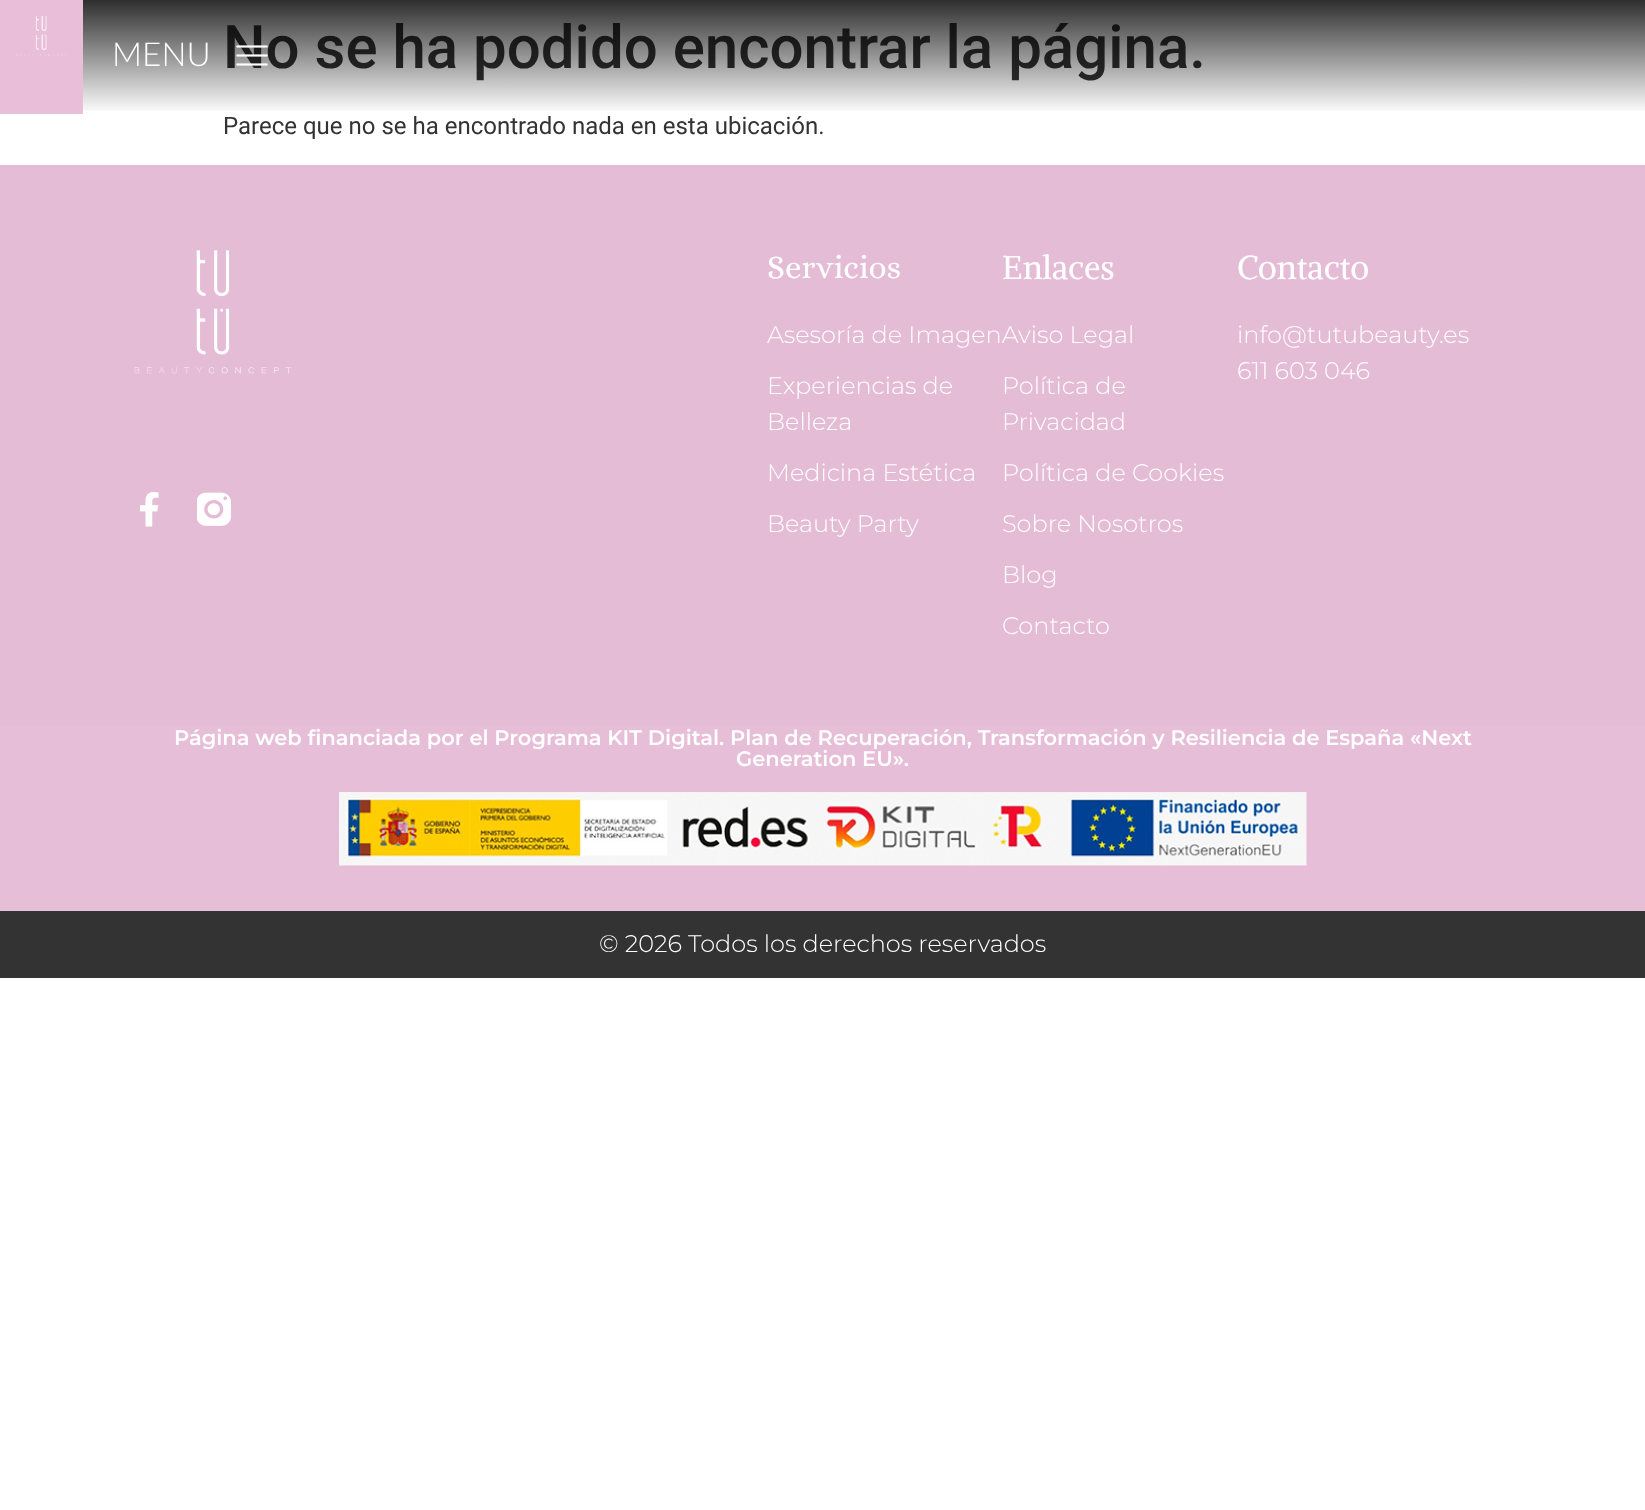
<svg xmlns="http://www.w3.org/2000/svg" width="1645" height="1510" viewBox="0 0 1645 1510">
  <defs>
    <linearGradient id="g1" gradientUnits="userSpaceOnUse" x1="823" y1="0" x2="823" y2="114"><stop offset="0" stop-color="rgb(0,0,0)" stop-opacity="0.82"/><stop offset="1" stop-color="rgb(0,0,0)" stop-opacity="0"/></linearGradient>
  </defs>
  <rect width="100%" height="100%" fill="rgb(255,255,255)"/>
  <text x="223" y="68" font-family="Roboto" font-size="60" font-weight="500" fill="rgb(51,51,51)">No se ha podido encontrar la página.</text>
  <rect x="83" y="0" width="1562" height="111" fill="url(#g1)"/>
  <rect x="0" y="0" width="83" height="114" fill="rgb(232,190,216)"/>
  <image x="16" y="15" width="51" height="42" href="pic1.png"/>
  <text x="112" y="66" font-family="Lato" font-size="33" font-weight="300" fill="rgb(255,255,255)">MENU</text>
  <image x="236" y="45" width="32" height="21" href="pic2.png"/>
  <text x="223" y="134" font-family="Roboto" font-size="24" fill="rgb(51,51,51)">Parece que no se ha encontrado nada en esta ubicación.</text>
  <rect x="0" y="165" width="1645" height="561" fill="rgb(229,188,214)"/>
  <image x="134" y="250" width="158" height="124" href="pic3.png"/>
  <image x="140" y="492" width="19" height="35" href="pic4.png"/>
  <image x="197" y="492" width="34" height="34" href="pic5.png"/>
  <text x="767" y="278" font-family="Alice" font-size="33" fill="rgb(255,255,255)">Servicios</text>
  <g font-family="Montserrat" font-size="24" font-weight="300" fill="rgb(255,255,255)">
    <text x="767" y="343">Asesoría de ImagenAviso Legal</text>
    <text>
      <tspan x="767" y="394">Experiencias de</tspan>
      <tspan x="767" y="430">Belleza</tspan>
    </text>
    <text x="767" y="481">Medicina Estética</text>
    <text x="767" y="532">Beauty Party</text>
  </g>
  <text x="1002" y="279" font-family="Alike" font-size="33" fill="rgb(255,255,255)">Enlaces</text>
  <g font-family="Montserrat" font-size="24" font-weight="300" fill="rgb(255,255,255)">
    <text>
      <tspan x="1002" y="394">Política de</tspan>
      <tspan x="1002" y="430">Privacidad</tspan>
    </text>
    <text x="1002" y="481">Política de Cookies</text>
    <text x="1002" y="532">Sobre Nosotros</text>
    <text x="1002" y="583">Blog</text>
    <text x="1002" y="634">Contacto</text>
  </g>
  <text x="1237" y="279" font-family="Alike" font-size="33" fill="rgb(255,255,255)">Contacto</text>
  <g font-family="Montserrat" font-size="24" font-weight="300" fill="rgb(255,255,255)">
    <text>
      <tspan x="1237" y="343">info@tutubeauty.es</tspan>
      <tspan x="1237" y="379">611 603 046</tspan>
    </text>
  </g>
  <rect x="0" y="726" width="1645" height="185" fill="rgb(231,190,216)"/>
  <g font-family="Montserrat" font-size="21" font-weight="600" fill="rgb(255,255,255)">
    <text x="174" y="745">Página web financiada por el Programa KIT Digital. Plan de Recuperación, Transformación y Resiliencia de España «Next</text>
    <text x="736" y="766">Generation EU».</text>
  </g>
  <image x="339" y="792" width="968" height="74" href="pic6.png"/>
  <rect x="0" y="911" width="1645" height="67" fill="rgb(51,51,51)"/>
  <text x="599" y="952" font-family="Montserrat" font-size="24" font-weight="300" fill="rgb(255,255,255)">© 2026 Todos los derechos reservados</text>
</svg>
